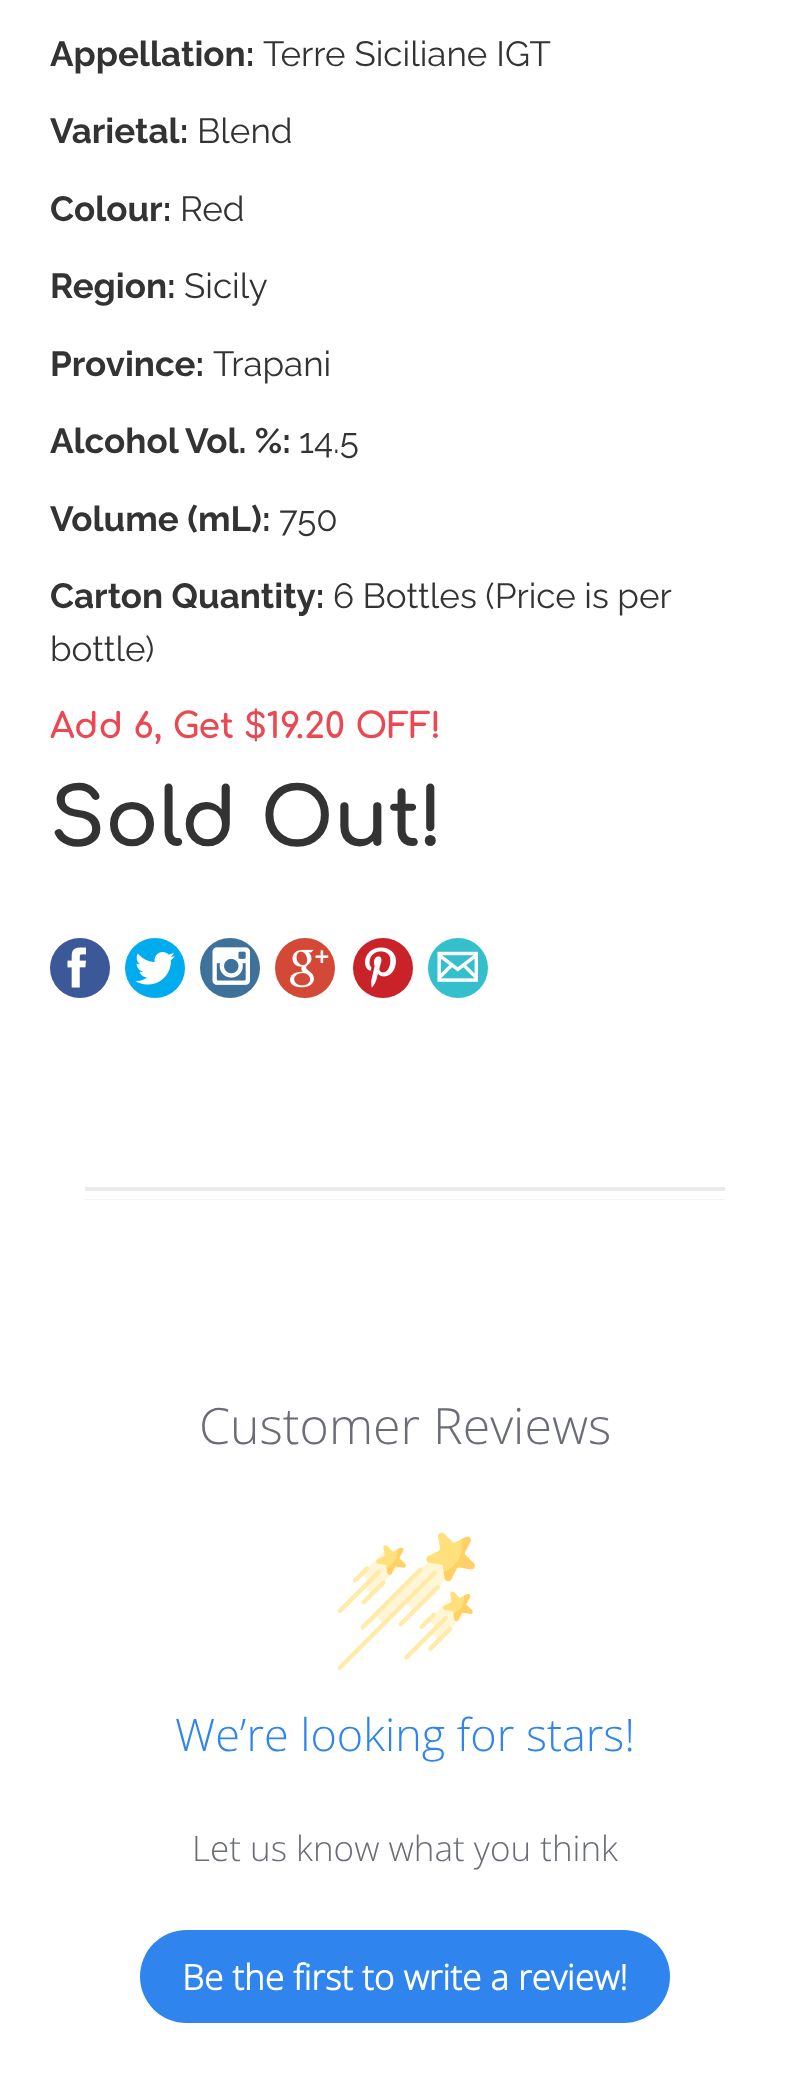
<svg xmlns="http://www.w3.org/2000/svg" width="810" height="2099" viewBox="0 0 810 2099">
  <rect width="100%" height="100%" fill="rgb(255,255,255)"/>
  <text x="50" y="66" font-family="Raleway" font-size="35" font-weight="bold" fill="rgb(51,51,51)">Appellation:</text>
  <text x="263" y="66" font-family="Raleway" font-size="35" fill="rgb(51,51,51)">Terre Siciliane IGT</text>
  <text x="50" y="143" font-family="Raleway" font-size="35" font-weight="bold" fill="rgb(51,51,51)">Varietal:</text>
  <text x="197" y="143" font-family="Raleway" font-size="35" fill="rgb(51,51,51)">Blend</text>
  <text x="50" y="221" font-family="Raleway" font-size="35" font-weight="bold" fill="rgb(51,51,51)">Colour:</text>
  <text x="180" y="221" font-family="Raleway" font-size="35" fill="rgb(51,51,51)">Red</text>
  <text x="50" y="298" font-family="Raleway" font-size="35" font-weight="bold" fill="rgb(51,51,51)">Region:</text>
  <text x="184" y="298" font-family="Raleway" font-size="35" fill="rgb(51,51,51)">Sicily</text>
  <text x="50" y="376" font-family="Raleway" font-size="35" font-weight="bold" fill="rgb(51,51,51)">Province:</text>
  <text x="213" y="376" font-family="Raleway" font-size="35" fill="rgb(51,51,51)">Trapani</text>
  <text x="50" y="453" font-family="Raleway" font-size="35" font-weight="bold" fill="rgb(51,51,51)">Alcohol Vol. %:</text>
  <text x="299" y="453" font-family="Raleway" font-size="35" fill="rgb(51,51,51)">14.5</text>
  <text x="50" y="531" font-family="Raleway" font-size="35" font-weight="bold" fill="rgb(51,51,51)">Volume (mL):</text>
  <text x="279" y="531" font-family="Raleway" font-size="35" fill="rgb(51,51,51)">750</text>
  <text x="50" y="608" font-family="Raleway" font-size="35" font-weight="bold" fill="rgb(51,51,51)">Carton Quantity:</text>
  <g font-family="Raleway" font-size="35" fill="rgb(51,51,51)">
    <text x="333" y="608" word-spacing="-0.5">6 Bottles (Price is per</text>
    <text x="50" y="661">bottle)</text>
  </g>
  <text x="50" y="738" font-family="Comfortaa" font-size="35" font-weight="bold" fill="rgb(234,73,84)">Add 6, Get $19.20 OFF!</text>
  <text x="50" y="846" font-family="Comfortaa" font-size="80" font-weight="bold" fill="rgb(51,51,51)">Sold Out!</text>
  <circle cx="80" cy="968" r="30" fill="rgb(59,89,152)"/>
  <image x="67" y="947" width="19" height="41" href="pic1.png"/>
  <circle cx="155" cy="968" r="30" fill="rgb(0,172,237)"/>
  <image x="135" y="952" width="40" height="33" href="pic2.png"/>
  <circle cx="230" cy="968" r="30" fill="rgb(63,114,155)"/>
  <image x="212" y="947" width="38" height="38" href="pic3.png"/>
  <circle cx="305" cy="968" r="30" fill="rgb(211,72,54)"/>
  <image x="290" y="949" width="39" height="39" href="pic4.png"/>
  <circle cx="383" cy="968" r="30" fill="rgb(201,34,40)"/>
  <image x="365" y="947" width="31" height="41" href="pic5.png"/>
  <circle cx="458" cy="968" r="30" fill="rgb(53,191,204)"/>
  <image x="437" y="951" width="41" height="31" href="pic6.png"/>
  <image x="85" y="1187" width="640" height="13" href="pic7.png"/>
  <text x="199" y="1444" font-family="Open Sans" font-size="50" font-weight="300" fill="rgb(107,109,118)">Customer Reviews</text>
  <image x="338" y="1533" width="137" height="137" href="pic8.png"/>
  <text x="175" y="1751" font-family="Open Sans" font-size="45" font-weight="300" fill="rgb(47,132,237)">We’re looking for stars!</text>
  <text x="192" y="1861" font-family="Open Sans" font-size="35" font-weight="300" fill="rgb(107,109,118)">Let us know what you think</text>
  <rect x="140" y="1930" width="530" height="93" rx="46.5" fill="rgb(47,132,237)"/>
  <text x="182" y="1990" font-family="Open Sans" font-size="35" font-weight="bold" fill="rgb(255,255,255)">Be the first to write a review!</text>
</svg>
